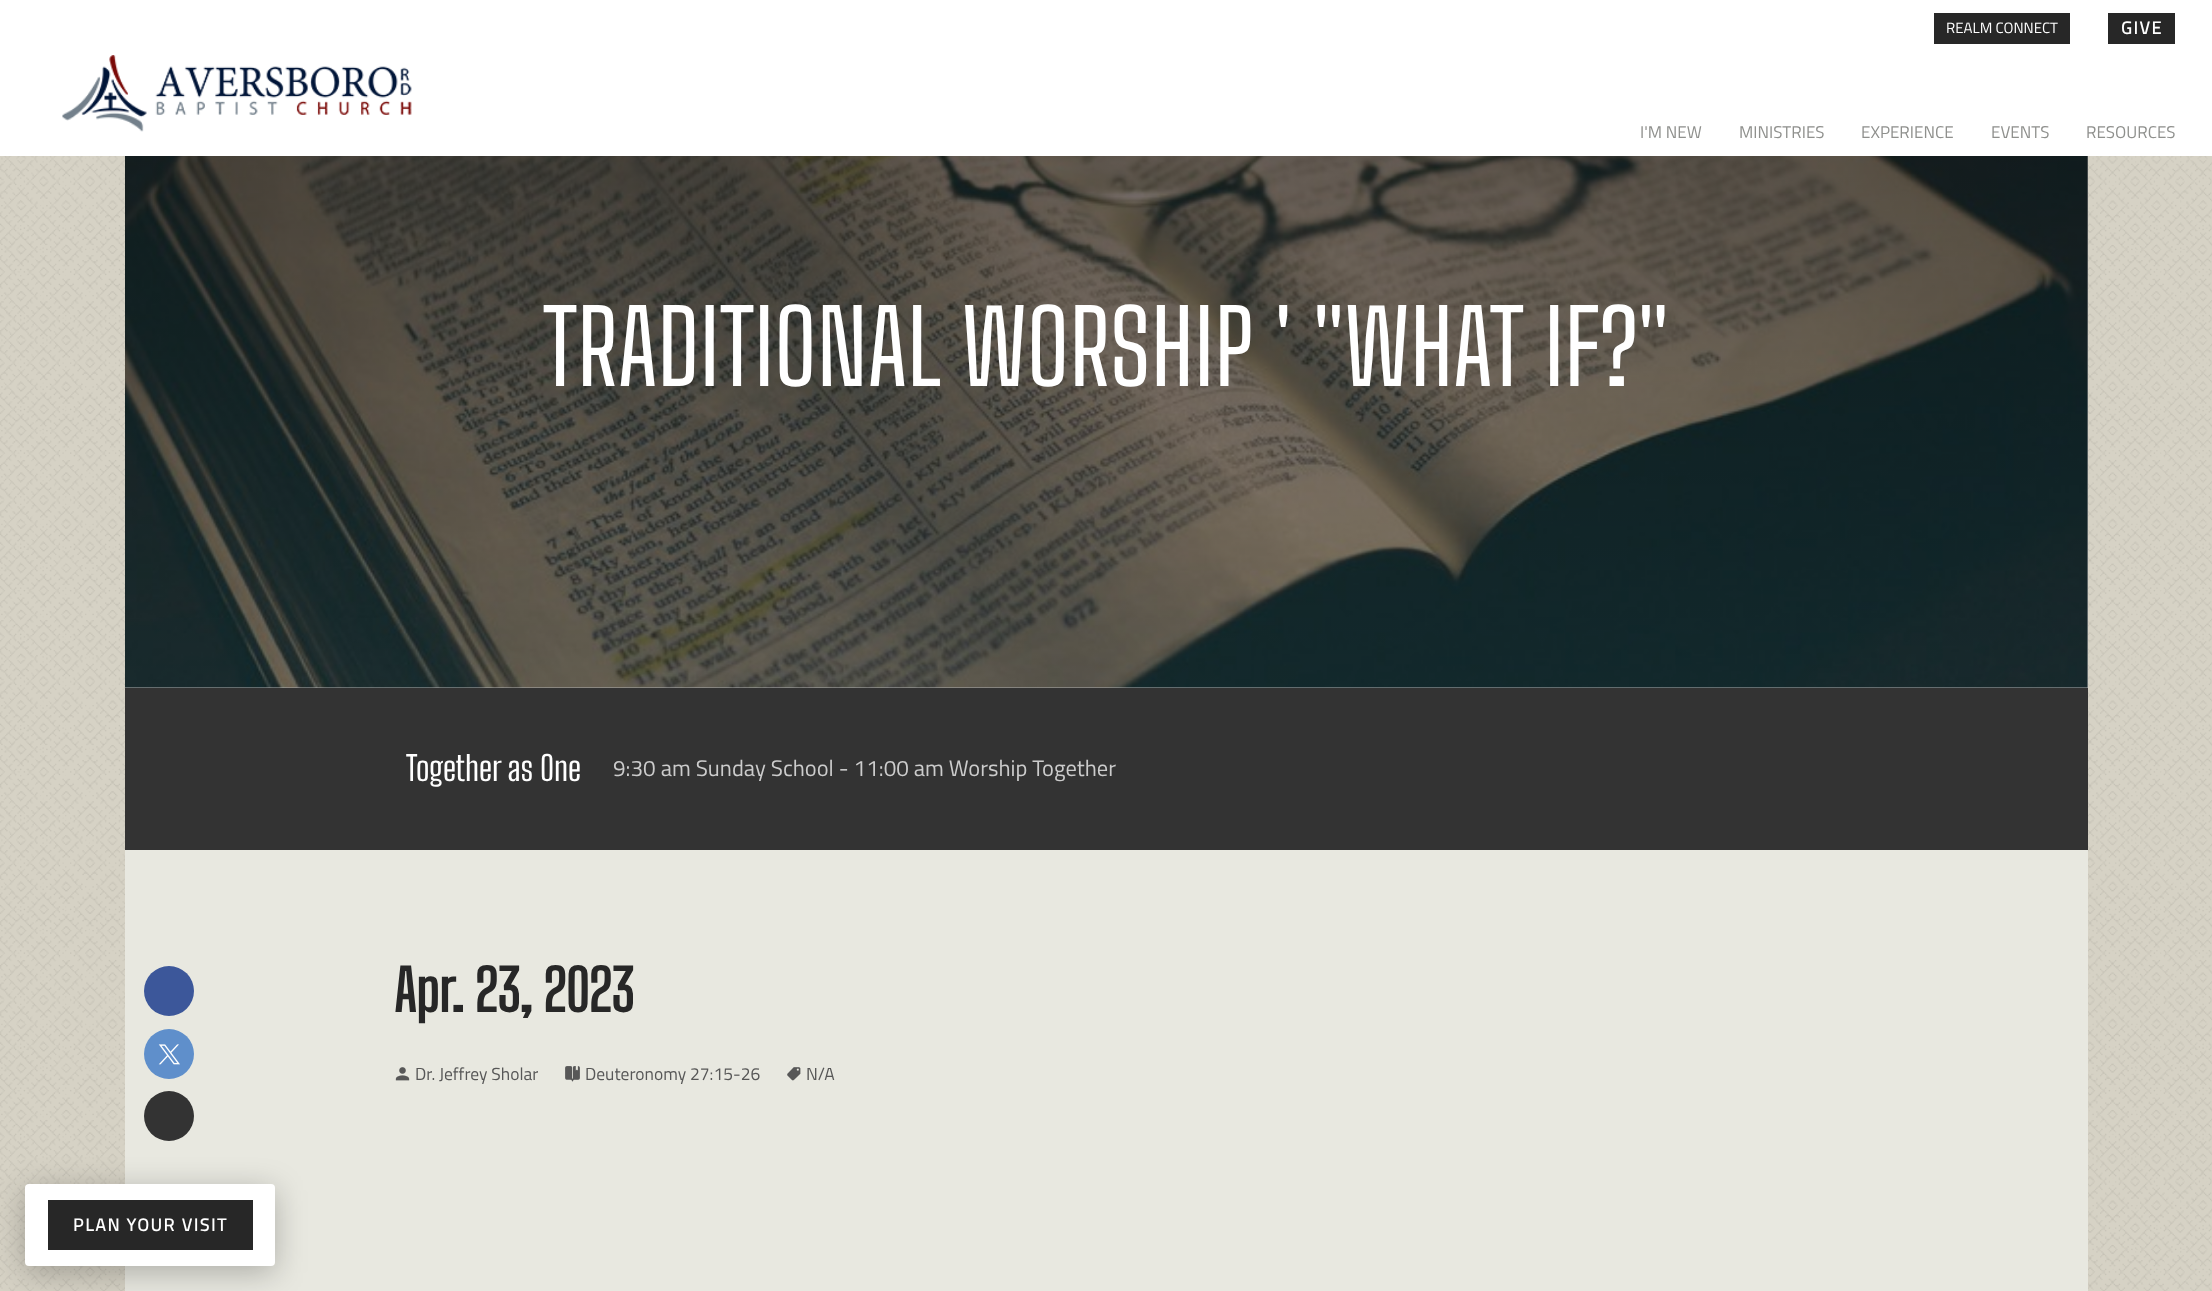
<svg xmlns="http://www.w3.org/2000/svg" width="2212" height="1291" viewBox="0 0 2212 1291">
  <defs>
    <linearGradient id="g1" gradientUnits="userSpaceOnUse" x1="1106" y1="0" x2="1106" y2="688"><stop offset="0" stop-color="rgb(0,0,0)" stop-opacity="0.6"/><stop offset="1" stop-color="rgb(0,0,0)" stop-opacity="0.3"/></linearGradient>
  </defs>
  <rect width="100%" height="100%" fill="rgb(214,210,197)"/>
  <image x="0" y="156" width="2212" height="1135" href="pic1.png"/>
  <rect x="125" y="850" width="1963" height="441" fill="rgb(232,232,224)"/>
  <circle cx="169" cy="991" r="25" fill="rgb(60,87,154)"/>
  <circle cx="169" cy="1054" r="25" fill="rgb(95,143,203)"/>
  <image x="158" y="1044" width="22" height="21" href="pic2.png"/>
  <circle cx="169" cy="1116" r="25" fill="rgb(51,51,51)"/>
  <rect x="125" y="156" width="1963" height="532" fill="rgb(255,255,255)"/>
  <rect x="0" y="0" width="2212" height="156" fill="rgb(255,255,255)"/>
  <image x="62" y="55" width="350" height="77" href="pic3.png"/>
  <rect x="1934" y="13" width="136" height="31" fill="rgb(39,39,39)"/>
  <text x="1946" y="33" font-family="Titillium Web" font-size="15" fill="rgb(255,255,255)">REALM CONNECT</text>
  <rect x="2108" y="13" width="67" height="31" fill="rgb(39,39,39)"/>
  <text x="2121" y="34" font-family="Titillium Web" font-size="17.5" font-weight="bold" letter-spacing="1.75" fill="rgb(255,255,255)">GIVE</text>
  <g font-family="Titillium Web" font-size="17" fill="rgb(143,144,141)">
    <text x="1640" y="138">I'M NEW</text>
    <text x="1739" y="138">MINISTRIES</text>
    <text x="1861" y="138">EXPERIENCE</text>
    <text x="1991" y="138">EVENTS</text>
    <text x="2086" y="138">RESOURCES</text>
  </g>
  <image x="125" y="156" width="1963" height="532" href="pic4.png"/>
  <rect x="125" y="156" width="1963" height="532" fill="url(#g1)"/>
  <text x="543" y="386" font-family="Big Shoulders Text" font-size="101.25" font-weight="100" fill="rgb(255,255,255)">TRADITIONAL WORSHIP ' "WHAT IF?"</text>
  <rect x="125" y="688" width="1963" height="162" fill="rgb(51,51,51)"/>
  <text x="406" y="781" font-family="Big Shoulders Text" font-size="33.75" font-weight="100" fill="rgb(255,255,255)">Together as One</text>
  <text x="613" y="776" font-family="Titillium Web" font-size="22.5" fill="rgb(204,204,204)">9:30 am Sunday School - 11:00 am Worship Together</text>
  <text x="394" y="1012" font-family="Big Shoulders Text" font-size="56.25" font-weight="bold" fill="rgb(39,39,39)">Apr. 23, 2023</text>
  <image x="395" y="1067" width="15" height="14" href="pic5.png"/>
  <text x="415" y="1080" font-family="Titillium Web" font-size="17.5" fill="rgb(87,87,87)">Dr. Jeffrey Sholar</text>
  <image x="565" y="1066" width="15" height="16" href="pic6.png"/>
  <text x="585" y="1080" font-family="Titillium Web" font-size="17.5" fill="rgb(87,87,87)">Deuteronomy 27:15-26</text>
  <image x="787" y="1067" width="14" height="14" href="pic7.png"/>
  <text x="806" y="1080" font-family="Titillium Web" font-size="17.5" fill="rgb(87,87,87)">N/A</text>
  <rect x="25" y="1190" width="250" height="83" rx="4" fill="rgba(0,0,0,0.25)" filter="blur(15.5px)"/>
  <rect x="25" y="1184" width="250" height="82" rx="4" fill="rgb(255,255,255)"/>
  <rect x="48" y="1200" width="205" height="50" fill="rgb(39,39,39)"/>
  <text x="73" y="1231" font-family="Titillium Web" font-size="17.5" font-weight="bold" letter-spacing="1.75" fill="rgb(255,255,255)">PLAN YOUR VISIT</text>
</svg>
